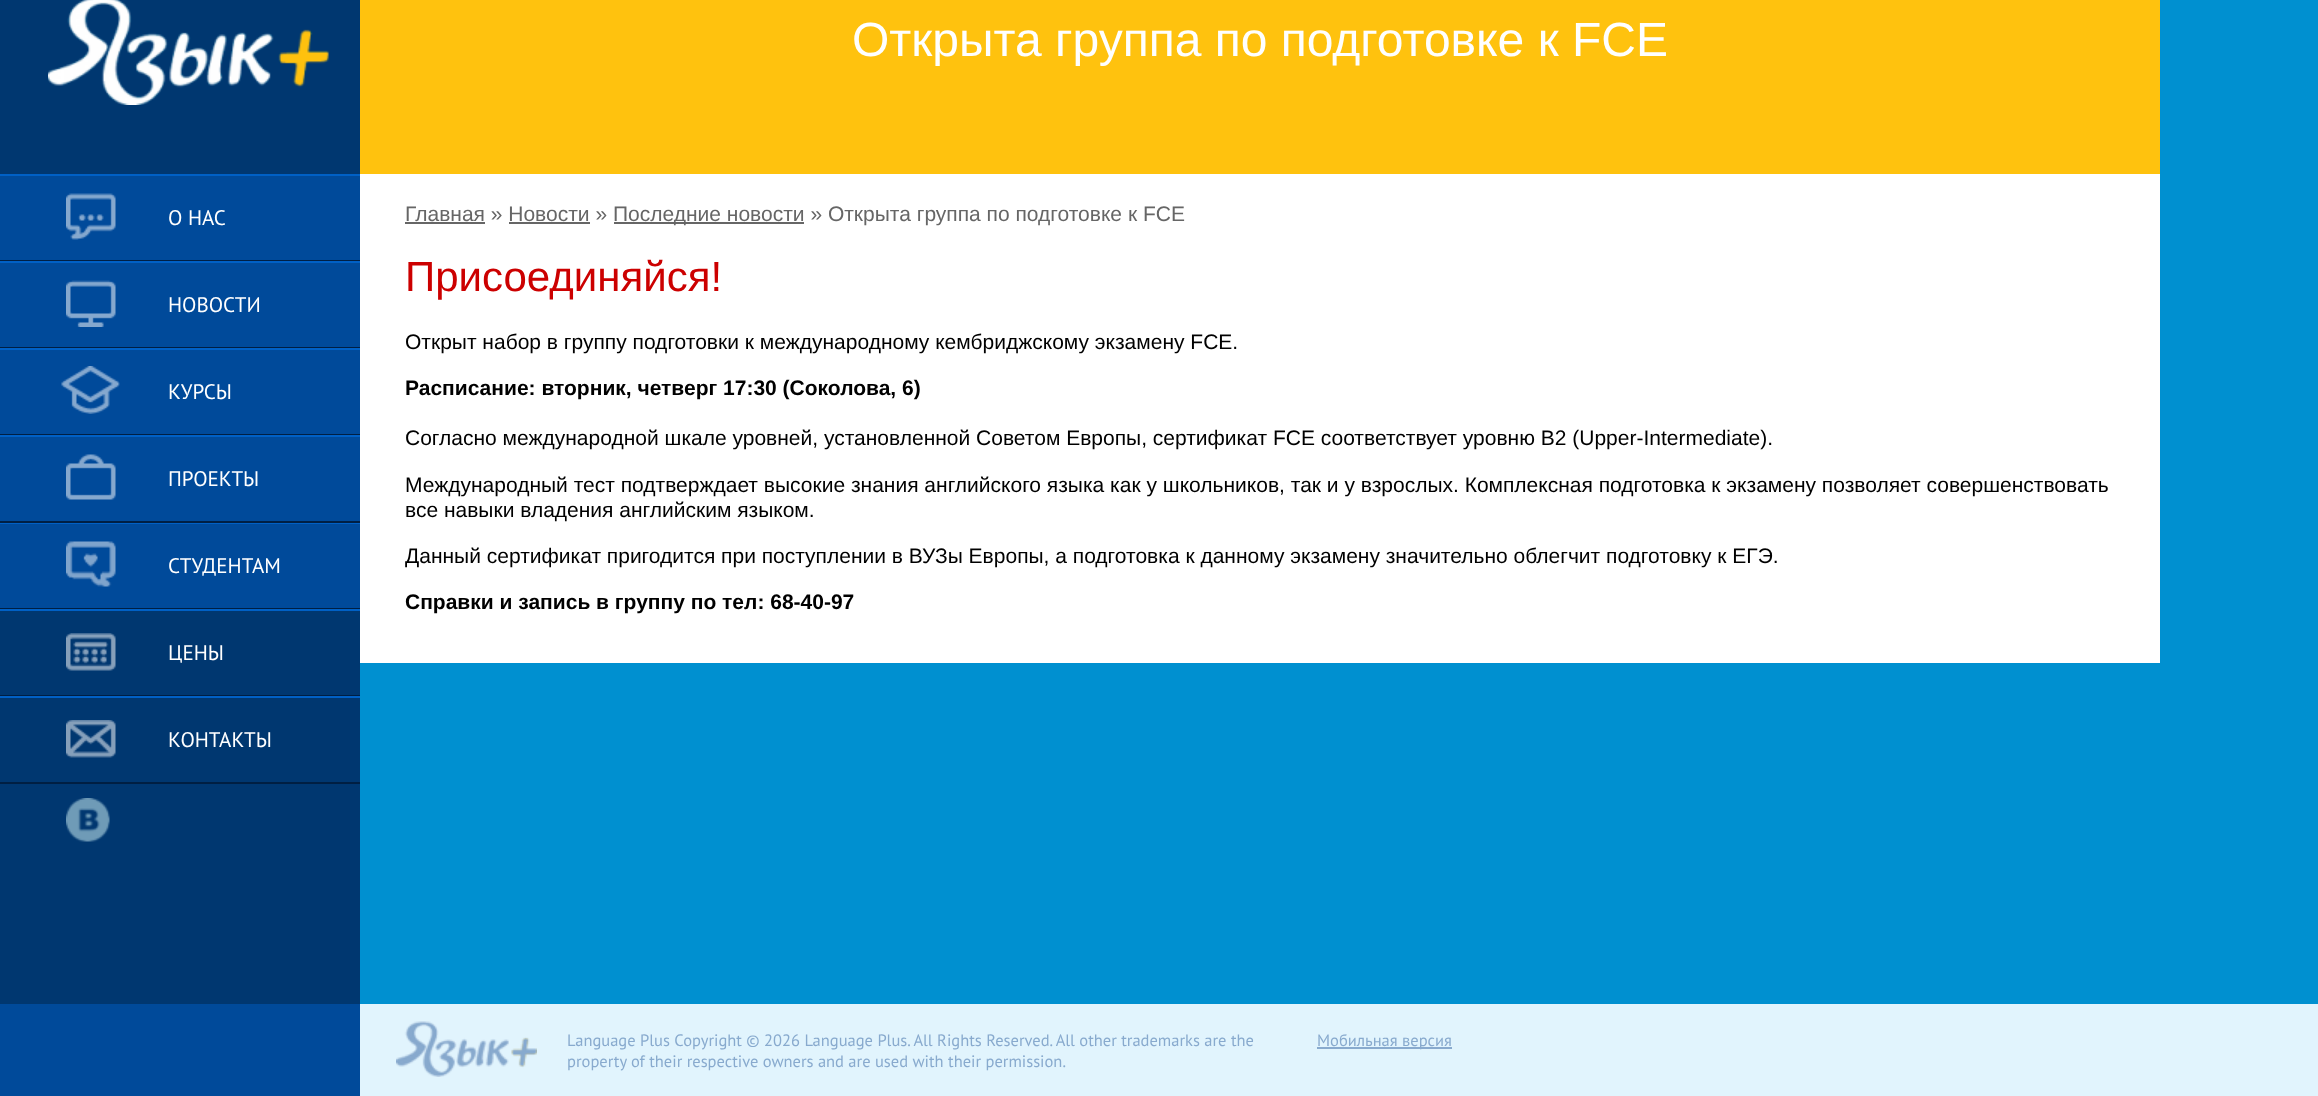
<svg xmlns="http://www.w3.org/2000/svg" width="2318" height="1096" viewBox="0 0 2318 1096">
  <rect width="100%" height="100%" fill="rgb(0,144,208)"/>
  <rect x="0" y="0" width="360" height="1004" fill="rgb(0,55,112)"/>
  <image x="48" y="0" width="281" height="105" href="pic1.png"/>
  <rect x="0" y="176" width="360" height="84" fill="rgb(0,74,154)"/>
  <rect x="0" y="174" width="360" height="2" fill="rgb(0,96,197)"/>
  <rect x="0" y="260" width="360" height="1" fill="rgb(0,31,67)"/>
  <image x="66" y="193" width="50" height="47" href="pic2.png"/>
  <text x="168" y="225" font-family="PT Sans" font-size="21" fill="rgb(255,255,255)">О НАС</text>
  <rect x="0" y="263" width="360" height="84" fill="rgb(0,74,154)"/>
  <rect x="0" y="261" width="360" height="2" fill="rgb(0,96,197)"/>
  <rect x="0" y="347" width="360" height="1" fill="rgb(0,31,67)"/>
  <image x="66" y="280" width="50" height="47" href="pic3.png"/>
  <text x="168" y="312" font-family="PT Sans" font-size="21" fill="rgb(255,255,255)">НОВОСТИ</text>
  <rect x="0" y="350" width="360" height="84" fill="rgb(0,74,154)"/>
  <rect x="0" y="348" width="360" height="2" fill="rgb(0,96,197)"/>
  <rect x="0" y="434" width="360" height="1" fill="rgb(0,31,67)"/>
  <image x="61" y="366" width="59" height="48" href="pic4.png"/>
  <text x="168" y="399" font-family="PT Sans" font-size="21" fill="rgb(255,255,255)">КУРСЫ</text>
  <rect x="0" y="437" width="360" height="84" fill="rgb(0,74,154)"/>
  <rect x="0" y="435" width="360" height="2" fill="rgb(0,96,197)"/>
  <rect x="0" y="521" width="360" height="2" fill="rgb(0,31,67)"/>
  <image x="66" y="454" width="50" height="46" href="pic5.png"/>
  <text x="168" y="486" font-family="PT Sans" font-size="21" fill="rgb(255,255,255)">ПРОЕКТЫ</text>
  <rect x="0" y="524" width="360" height="84" fill="rgb(0,74,154)"/>
  <rect x="0" y="523" width="360" height="1" fill="rgb(0,96,197)"/>
  <rect x="0" y="608" width="360" height="1" fill="rgb(0,31,67)"/>
  <image x="66" y="541" width="50" height="46" href="pic6.png"/>
  <text x="168" y="573" font-family="PT Sans" font-size="21" fill="rgb(255,255,255)">СТУДЕНТАМ</text>
  <rect x="0" y="609" width="360" height="2" fill="rgb(0,96,197)"/>
  <rect x="0" y="695" width="360" height="1" fill="rgb(0,31,67)"/>
  <image x="66" y="633" width="50" height="38" href="pic7.png"/>
  <text x="168" y="660" font-family="PT Sans" font-size="21" fill="rgb(255,255,255)">ЦЕНЫ</text>
  <rect x="0" y="696" width="360" height="2" fill="rgb(0,96,197)"/>
  <rect x="0" y="782" width="360" height="2" fill="rgb(0,31,67)"/>
  <image x="66" y="720" width="50" height="38" href="pic8.png"/>
  <text x="168" y="747" font-family="PT Sans" font-size="21" fill="rgb(255,255,255)">КОНТАКТЫ</text>
  <image x="66" y="798" width="44" height="44" href="pic9.png"/>
  <rect x="360" y="0" width="1800" height="174" fill="rgb(255,194,14)"/>
  <text x="852" y="56" font-family="Liberation Sans" font-size="48" fill="rgb(255,255,255)">Открыта группа по подготовке к FCE</text>
  <rect x="360" y="174" width="1800" height="489" fill="rgb(255,255,255)"/>
  <text x="405" y="221" font-family="Liberation Sans" font-size="21" fill="rgb(102,102,102)">Главная » Новости »</text>
  <rect x="405" y="222" width="80" height="2" fill="rgb(102,102,102)"/>
  <rect x="614" y="222" width="190" height="2" fill="rgb(102,102,102)"/>
  <text x="613" y="221" font-family="Liberation Sans" font-size="21" fill="rgb(102,102,102)">Последние новости » Открыта группа по подготовке к FCE</text>
  <rect x="509" y="222" width="81" height="2" fill="rgb(102,102,102)"/>
  <text x="405" y="291" font-family="Liberation Sans" font-size="42" fill="rgb(204,0,0)">Присоединяйся!</text>
  <text x="405" y="349" font-family="Liberation Sans" font-size="21" fill="rgb(0,0,0)">Открыт набор в группу подготовки к международному кембриджскому экзамену FCE.</text>
  <text x="405" y="395" font-family="Liberation Sans" font-size="21" font-weight="bold" fill="rgb(0,0,0)">Расписание: вторник, четверг 17:30 (Соколова, 6)</text>
  <g font-family="Liberation Sans" font-size="21" fill="rgb(0,0,0)">
    <text x="405" y="445">Согласно международной шкале уровней, установленной Советом Европы, сертификат FCE соответствует уровню B2 (Upper-Intermediate).</text>
    <text>
      <tspan x="405" y="492">Международный тест подтверждает высокие знания английского языка как у школьников, так и у взрослых. Комплексная подготовка к экзамену позволяет совершенствовать</tspan>
      <tspan x="405" y="517">все навыки владения английским языком.</tspan>
    </text>
    <text x="405" y="563">Данный сертификат пригодится при поступлении в ВУЗы Европы, а подготовка к данному экзамену значительно облегчит подготовку к ЕГЭ.</text>
  </g>
  <text x="405" y="609" font-family="Liberation Sans" font-size="21" font-weight="bold" fill="rgb(0,0,0)">Справки и запись в группу по тел: 68-40-97</text>
  <rect x="360" y="1004" width="1958" height="92" fill="rgb(225,244,253)"/>
  <rect x="0" y="1004" width="360" height="92" fill="rgb(0,74,154)"/>
  <image x="396" y="1021" width="141" height="56" href="pic10.png"/>
  <g font-family="PT Sans" font-size="16.5" fill="rgb(136,170,206)">
    <text>
      <tspan x="567" y="1046">Language Plus Copyright © 2026 Language Plus. All Rights Reserved. All other trademarks are the</tspan>
      <tspan x="567" y="1067">property of their respective owners and are used with their permission.</tspan>
    </text>
  </g>
  <rect x="1317" y="1047" width="135" height="2" fill="rgb(136,170,206)"/>
  <text x="1317" y="1046" font-family="PT Sans" font-size="16.5" fill="rgb(136,170,206)">Мобильная версия</text>
</svg>
